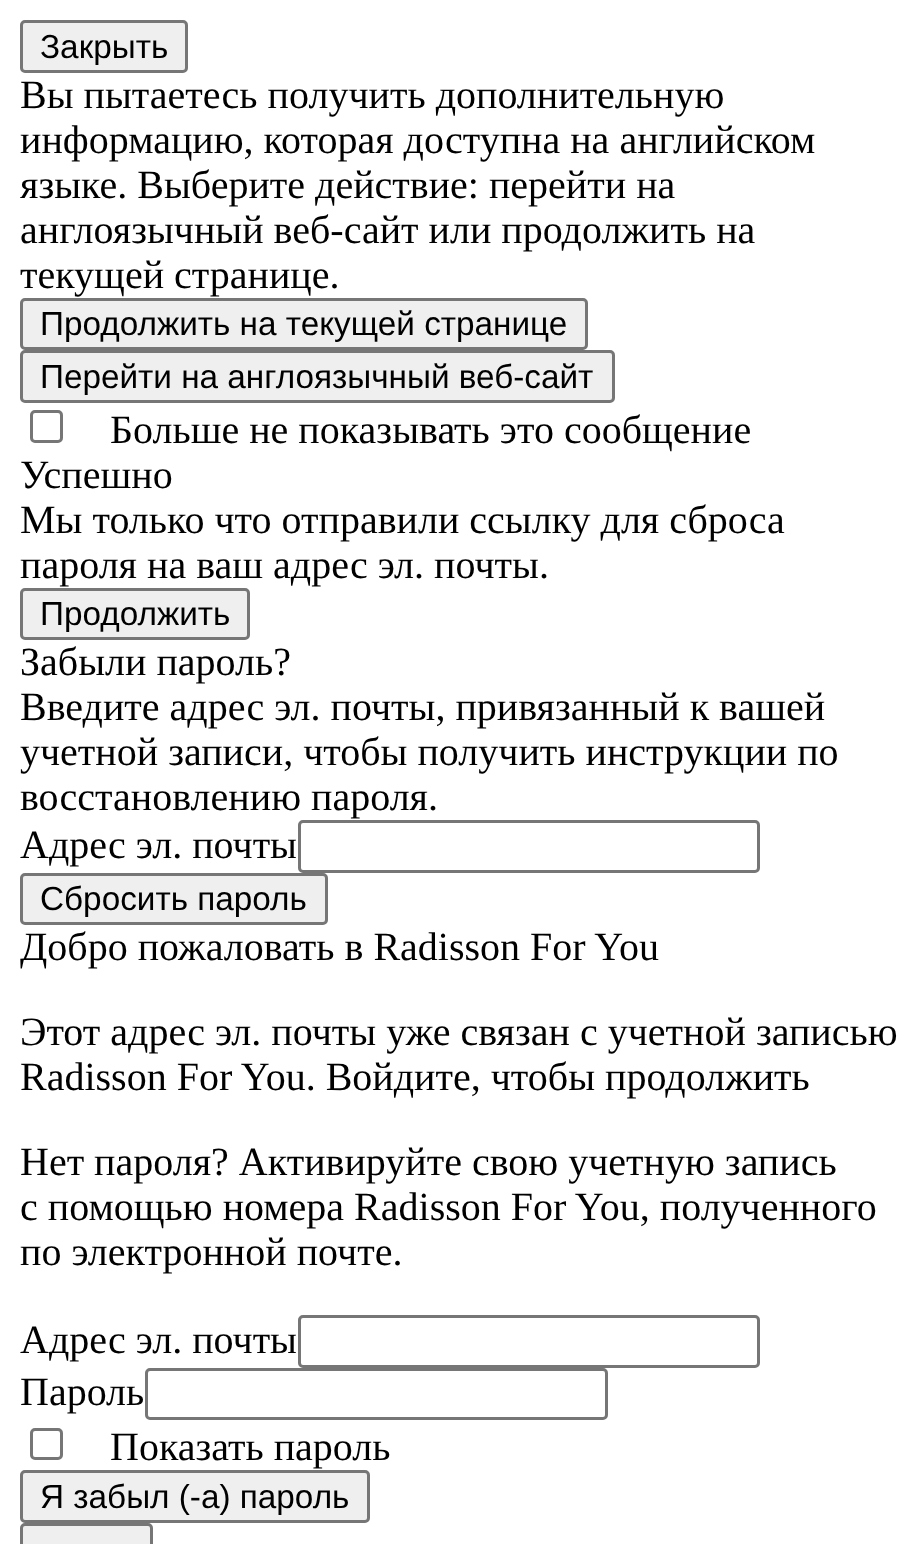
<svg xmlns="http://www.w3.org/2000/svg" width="921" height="1544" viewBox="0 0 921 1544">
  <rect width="100%" height="100%" fill="rgb(255,255,255)"/>
  <rect x="21.5" y="21.5" width="165" height="50" rx="3.5" fill="rgb(239,239,239)" stroke="rgb(118,118,118)" stroke-width="3"/>
  <text x="40" y="58" font-family="Liberation Sans" font-size="33.3" fill="rgb(0,0,0)">Закрыть</text>
  <g font-family="Liberation Serif" font-size="40" fill="rgb(0,0,0)">
    <text>
      <tspan x="20" y="108">Вы пытаетесь получить дополнительную</tspan>
      <tspan x="20" y="153">информацию, которая доступна на английском</tspan>
      <tspan x="20" y="198">языке. Выберите действие: перейти на</tspan>
      <tspan x="20" y="243">англоязычный веб-сайт или продолжить на</tspan>
      <tspan x="20" y="288">текущей странице.</tspan>
    </text>
  </g>
  <rect x="21.5" y="299.5" width="565" height="49" rx="3.5" fill="rgb(239,239,239)" stroke="rgb(118,118,118)" stroke-width="3"/>
  <text x="40" y="335" font-family="Liberation Sans" font-size="33.3" fill="rgb(0,0,0)">Продолжить на текущей странице</text>
  <rect x="21.5" y="351.5" width="592" height="50" rx="3.5" fill="rgb(239,239,239)" stroke="rgb(118,118,118)" stroke-width="3"/>
  <text x="40" y="388" font-family="Liberation Sans" font-size="33.3" fill="rgb(0,0,0)">Перейти на англоязычный веб-сайт</text>
  <rect x="31.5" y="411.5" width="30" height="30" rx="3.5" fill="none" stroke="rgb(118,118,118)" stroke-width="3"/>
  <g font-family="Liberation Serif" font-size="40" fill="rgb(0,0,0)">
    <text x="110" y="443">Больше не показывать это сообщение</text>
    <text>
      <tspan x="20" y="488">Успешно</tspan>
      <tspan x="20" y="533">Мы только что отправили ссылку для сброса</tspan>
      <tspan x="20" y="578">пароля на ваш адрес эл. почты.</tspan>
    </text>
  </g>
  <rect x="21.5" y="589.5" width="227" height="49" rx="3.5" fill="rgb(239,239,239)" stroke="rgb(118,118,118)" stroke-width="3"/>
  <text x="40" y="625" font-family="Liberation Sans" font-size="33.3" fill="rgb(0,0,0)">Продолжить</text>
  <g font-family="Liberation Serif" font-size="40" fill="rgb(0,0,0)">
    <text>
      <tspan x="20" y="675">Забыли пароль?</tspan>
      <tspan x="20" y="720">Введите адрес эл. почты, привязанный к вашей</tspan>
      <tspan x="20" y="765">учетной записи, чтобы получить инструкции по</tspan>
      <tspan x="20" y="810">восстановлению пароля.</tspan>
      <tspan x="20" y="858">Адрес эл. почты</tspan>
    </text>
  </g>
  <rect x="299.5" y="821.5" width="459" height="50" rx="3.5" fill="none" stroke="rgb(118,118,118)" stroke-width="3"/>
  <rect x="21.5" y="874.5" width="305" height="49" rx="3.5" fill="rgb(239,239,239)" stroke="rgb(118,118,118)" stroke-width="3"/>
  <text x="40" y="910" font-family="Liberation Sans" font-size="33.3" fill="rgb(0,0,0)">Сбросить пароль</text>
  <g font-family="Liberation Serif" font-size="40" fill="rgb(0,0,0)">
    <text x="20" y="960">Добро пожаловать в Radisson For You</text>
    <text>
      <tspan x="20" y="1045">Этот адрес эл. почты уже связан с учетной записью</tspan>
      <tspan x="20" y="1090">Radisson For You. Войдите, чтобы продолжить</tspan>
    </text>
    <text>
      <tspan x="20" y="1175">Нет пароля? Активируйте свою учетную запись</tspan>
      <tspan x="20" y="1220">с помощью номера Radisson For You, полученного</tspan>
      <tspan x="20" y="1265">по электронной почте.</tspan>
    </text>
    <text x="20" y="1353">Адрес эл. почты</text>
  </g>
  <rect x="299.5" y="1316.5" width="459" height="50" rx="3.5" fill="none" stroke="rgb(118,118,118)" stroke-width="3"/>
  <text x="20" y="1405" font-family="Liberation Serif" font-size="40" fill="rgb(0,0,0)">Пароль</text>
  <rect x="146.5" y="1369.5" width="460" height="49" rx="3.5" fill="none" stroke="rgb(118,118,118)" stroke-width="3"/>
  <rect x="31.5" y="1429.5" width="30" height="29" rx="3.5" fill="none" stroke="rgb(118,118,118)" stroke-width="3"/>
  <text x="110" y="1460" font-family="Liberation Serif" font-size="40" fill="rgb(0,0,0)">Показать пароль</text>
  <rect x="21.5" y="1471.5" width="347" height="50" rx="3.5" fill="rgb(239,239,239)" stroke="rgb(118,118,118)" stroke-width="3"/>
  <text x="40" y="1508" font-family="Liberation Sans" font-size="33.3" fill="rgb(0,0,0)">Я забыл (-а) пароль</text>
  <rect x="21.5" y="1524.5" width="130" height="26" rx="3.5" fill="rgb(239,239,239)" stroke="rgb(118,118,118)" stroke-width="3"/>
</svg>
